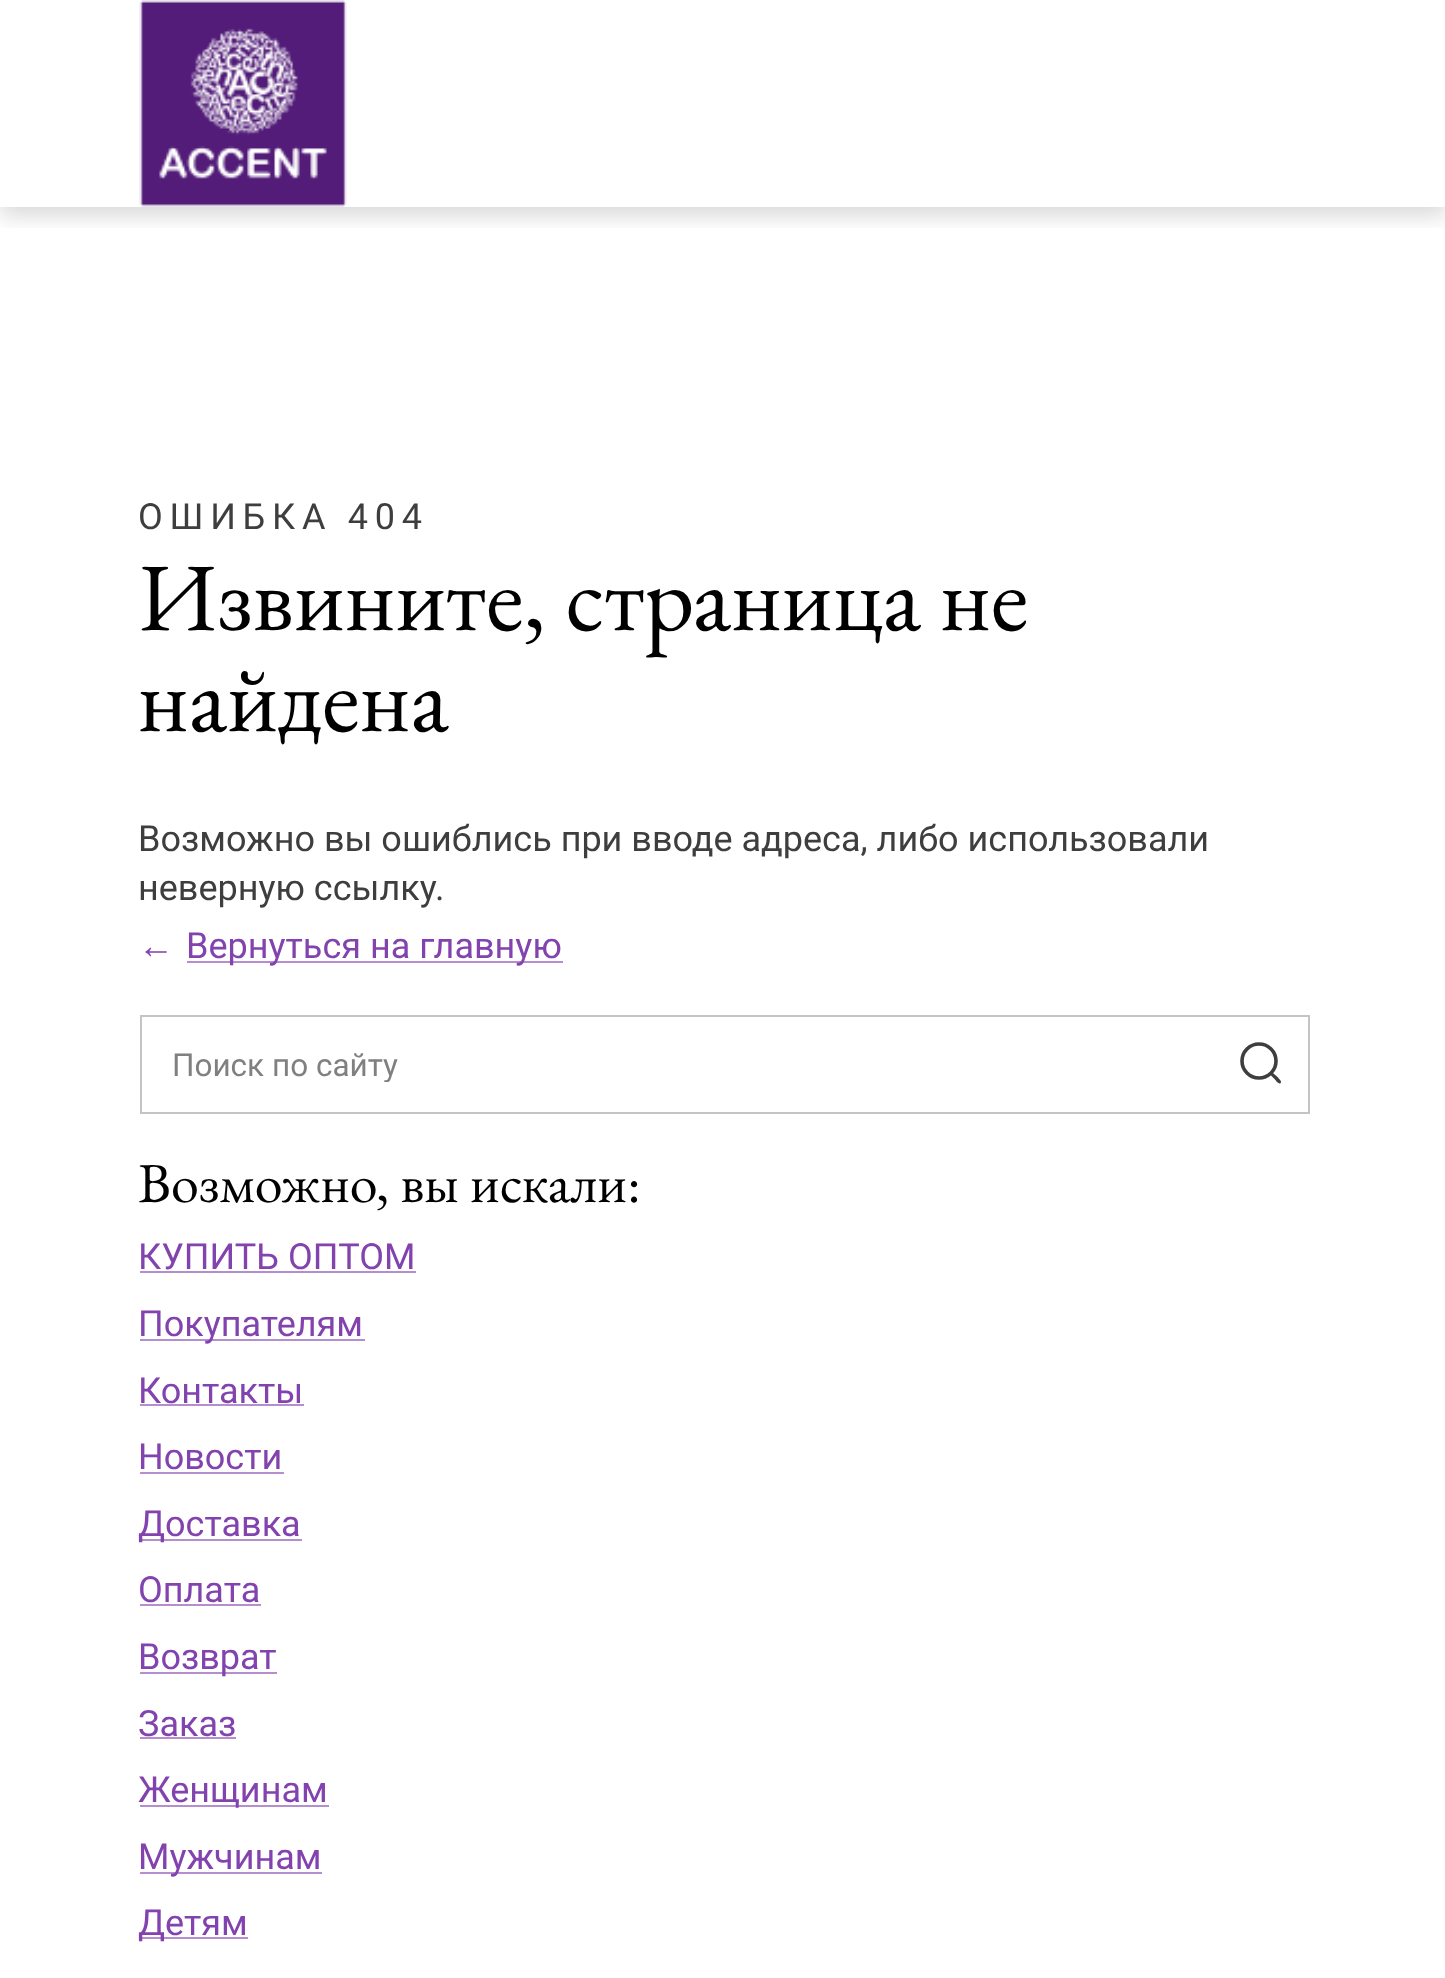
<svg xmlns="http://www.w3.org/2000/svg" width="1445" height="1978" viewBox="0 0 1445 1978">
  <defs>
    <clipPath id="clip1"><rect x="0" y="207" width="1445" height="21"/></clipPath>
    <clipPath id="clip2"><rect x="173" y="1046" width="1047" height="36"/></clipPath>
  </defs>
  <rect width="100%" height="100%" fill="rgb(255,255,255)"/>
  <g clip-path="url(#clip1)">
    <rect x="0" y="9" width="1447" height="207" fill="rgba(0,0,0,0.15)" filter="blur(11px)"/>
  </g>
  <image x="139" y="0" width="208" height="207" href="pic1.png"/>
  <text x="138" y="529" font-family="Roboto" font-size="36" letter-spacing="6.75" fill="rgb(62,62,62)">ОШИБКА 404</text>
  <g font-family="EB Garamond" font-size="96.75" fill="rgb(0,0,0)">
    <text>
      <tspan x="138" y="630">Извините, страница не</tspan>
      <tspan x="138" y="731">найдена</tspan>
    </text>
  </g>
  <g font-family="Roboto" font-size="36" fill="rgb(62,62,62)">
    <text>
      <tspan x="138" y="851">Возможно вы ошиблись при вводе адреса, либо использовали</tspan>
      <tspan x="138" y="900">неверную ссылку.</tspan>
    </text>
  </g>
  <text x="138" y="958" font-family="Liberation Sans" font-size="36" fill="rgb(131,67,175)">←</text>
  <rect x="187" y="961" width="376" height="2" fill="rgb(181,142,207)"/>
  <text x="186" y="958" font-family="Roboto" font-size="36" fill="rgb(131,67,175)">Вернуться на главную</text>
  <rect x="141" y="1016" width="1168" height="97" fill="none" stroke="rgb(196,196,196)" stroke-width="2"/>
  <g clip-path="url(#clip2)">
    <text x="172" y="1076" font-family="Roboto" font-size="31.5" fill="rgb(128,128,128)">Поиск по сайту</text>
  </g>
  <circle cx="1259" cy="1061" r="17" fill="none" stroke="rgb(62,62,62)" stroke-width="3.6"/>
  <path d="M1273 1073C1274.5 1074.5 1281.5 1080 1281 1082C1280 1086.5 1275 1079.5 1274.5 1079L1270.5 1075C1269.5 1073.5 1271.5 1071.5 1273 1073Z" fill="rgb(62,62,62)" fill-rule="evenodd"/>
  <text x="138" y="1202" font-family="EB Garamond" font-size="56.25" fill="rgb(0,0,0)">Возможно, вы искали:</text>
  <text x="138" y="1269" font-family="Roboto" font-size="36" fill="rgb(131,67,175)">КУПИТЬ ОПТОМ</text>
  <rect x="140" y="1271" width="276" height="2" fill="rgb(181,142,207)"/>
  <rect x="140" y="1339" width="225" height="2" fill="rgb(181,142,207)"/>
  <g font-family="Roboto" font-size="36" fill="rgb(131,67,175)">
    <text>
      <tspan x="138" y="1336">Покупателям</tspan>
      <tspan x="138" y="1403">Контакты</tspan>
    </text>
  </g>
  <rect x="140" y="1404" width="164" height="2" fill="rgb(181,142,207)"/>
  <text x="138" y="1469" font-family="Roboto" font-size="36" fill="rgb(131,67,175)">Новости</text>
  <rect x="140" y="1472" width="144" height="2" fill="rgb(181,142,207)"/>
  <rect x="140" y="1539" width="162" height="2" fill="rgb(181,142,207)"/>
  <g font-family="Roboto" font-size="36" fill="rgb(131,67,175)">
    <text>
      <tspan x="138" y="1536">Доставка</tspan>
      <tspan x="138" y="1602">Оплата</tspan>
    </text>
  </g>
  <rect x="140" y="1604" width="121" height="2" fill="rgb(181,142,207)"/>
  <rect x="140" y="1672" width="137" height="2" fill="rgb(181,142,207)"/>
  <g font-family="Roboto" font-size="36" fill="rgb(131,67,175)">
    <text>
      <tspan x="138" y="1669">Возврат</tspan>
      <tspan x="138" y="1736">Заказ</tspan>
    </text>
  </g>
  <rect x="140" y="1737" width="96" height="2" fill="rgb(181,142,207)"/>
  <rect x="140" y="1805" width="189" height="2" fill="rgb(181,142,207)"/>
  <text x="138" y="1802" font-family="Roboto" font-size="36" fill="rgb(131,67,175)">Женщинам</text>
  <rect x="140" y="1872" width="182" height="2" fill="rgb(181,142,207)"/>
  <text x="138" y="1869" font-family="Roboto" font-size="36" fill="rgb(131,67,175)">Мужчинам</text>
  <rect x="140" y="1937" width="108" height="2" fill="rgb(181,142,207)"/>
  <text x="138" y="1935" font-family="Roboto" font-size="36" fill="rgb(131,67,175)">Детям</text>
</svg>
